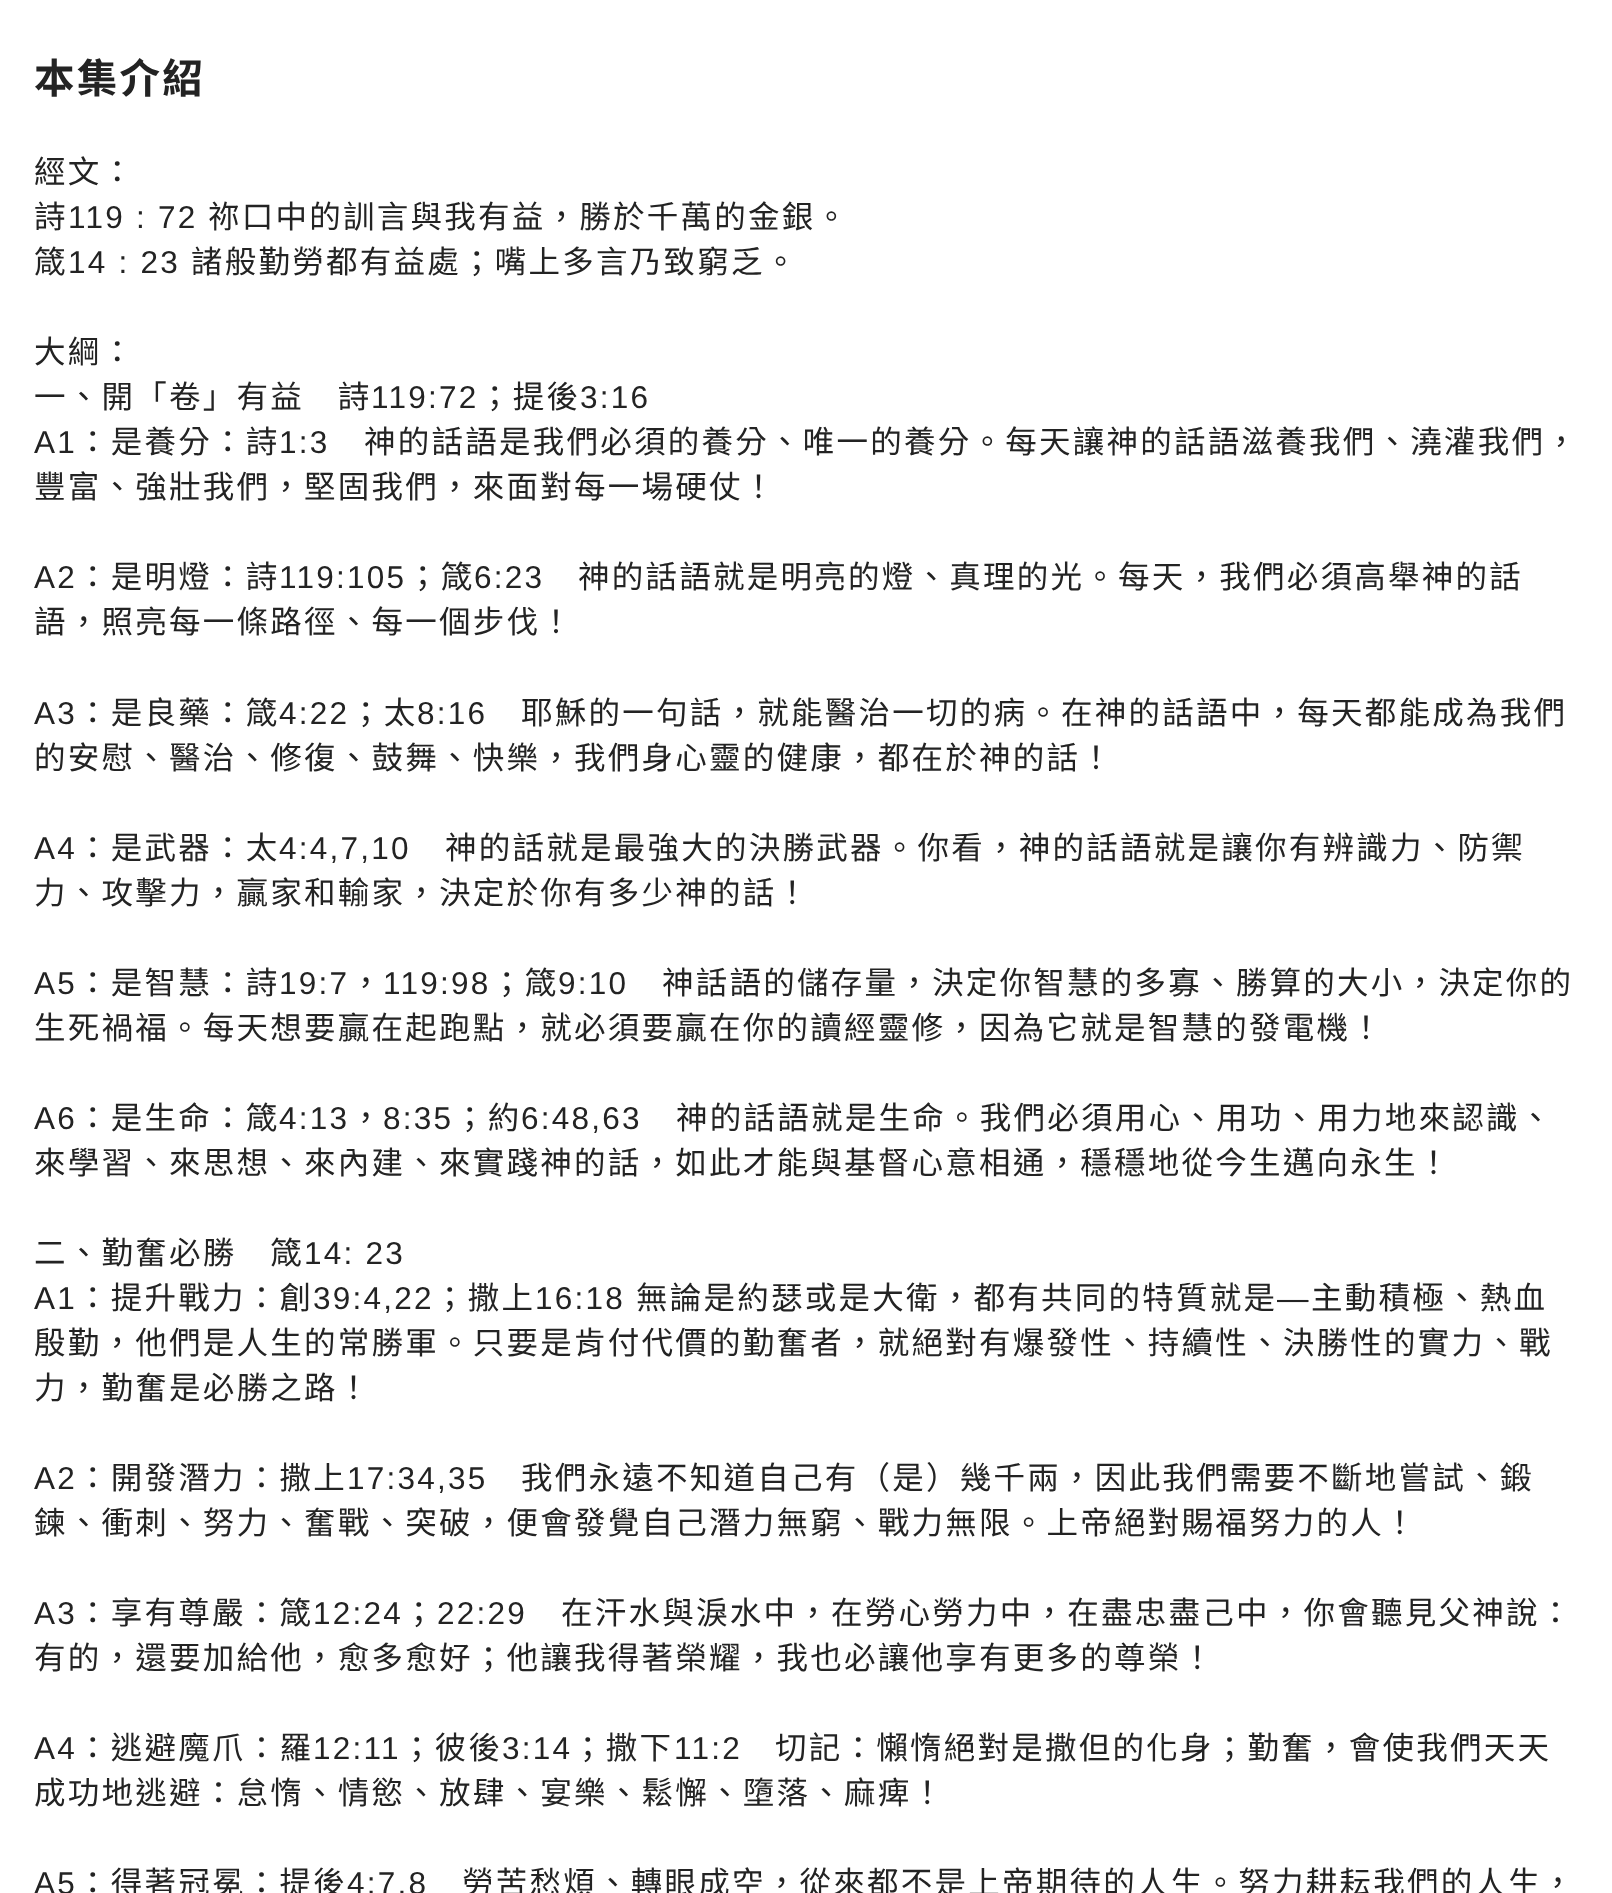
<svg xmlns="http://www.w3.org/2000/svg" width="1612" height="1893" viewBox="0 0 1612 1893">
  <rect width="100%" height="100%" fill="rgb(255,255,255)"/>
  <text x="34" y="93" font-family="Noto Sans CJK TC" font-size="40.5" font-weight="bold" letter-spacing="2.25" fill="rgb(35,35,35)">本集介紹</text>
  <g font-family="Noto Sans CJK TC" font-size="31.5" letter-spacing="2.25" fill="rgb(35,35,35)">
    <text>
      <tspan x="34" y="183">經文：</tspan>
      <tspan x="34" y="228">詩</tspan>
    </text>
  </g>
  <text x="68" y="228" font-family="Liberation Sans" font-size="31.5" letter-spacing="2.25" fill="rgb(35,35,35)">119 : 72</text>
  <g font-family="Noto Sans CJK TC" font-size="31.5" letter-spacing="2.25" fill="rgb(35,35,35)">
    <text x="208" y="228">祢口中的訓言與我有益，勝於千萬的金銀。</text>
    <text x="34" y="273">箴</text>
  </g>
  <text x="68" y="273" font-family="Liberation Sans" font-size="31.5" letter-spacing="2.25" fill="rgb(35,35,35)">14 : 23</text>
  <g font-family="Noto Sans CJK TC" font-size="31.5" letter-spacing="2.25" fill="rgb(35,35,35)">
    <text x="191" y="273">諸般勤勞都有益處；嘴上多言乃致窮乏。</text>
    <text>
      <tspan x="34" y="363">大綱：</tspan>
      <tspan x="34" y="408">一、開「卷」有益　詩</tspan>
    </text>
  </g>
  <text x="371" y="408" font-family="Liberation Sans" font-size="31.5" letter-spacing="2.25" fill="rgb(35,35,35)">119:72</text>
  <text x="479" y="408" font-family="Noto Sans CJK TC" font-size="31.5" letter-spacing="2.25" fill="rgb(35,35,35)">；提後</text>
  <g font-family="Liberation Sans" font-size="31.5" letter-spacing="2.25" fill="rgb(35,35,35)">
    <text x="580" y="408">3:16</text>
    <text x="34" y="453">A1</text>
  </g>
  <text x="77" y="453" font-family="Noto Sans CJK TC" font-size="31.5" letter-spacing="2.25" fill="rgb(35,35,35)">：是養分：詩</text>
  <text x="279" y="453" font-family="Liberation Sans" font-size="31.5" letter-spacing="2.25" fill="rgb(35,35,35)">1:3</text>
  <g font-family="Noto Sans CJK TC" font-size="31.5" letter-spacing="2.25" fill="rgb(35,35,35)">
    <text x="364" y="453">神的話語是我們必須的養分、唯一的養分。每天讓神的話語滋養我們、澆灌我們，</text>
    <text x="34" y="498">豐富、強壯我們，堅固我們，來面對每一場硬仗！</text>
  </g>
  <text x="34" y="588" font-family="Liberation Sans" font-size="31.5" letter-spacing="2.25" fill="rgb(35,35,35)">A2</text>
  <text x="77" y="588" font-family="Noto Sans CJK TC" font-size="31.5" letter-spacing="2.25" fill="rgb(35,35,35)">：是明燈：詩</text>
  <text x="279" y="588" font-family="Liberation Sans" font-size="31.5" letter-spacing="2.25" fill="rgb(35,35,35)">119:105</text>
  <text x="407" y="588" font-family="Noto Sans CJK TC" font-size="31.5" letter-spacing="2.25" fill="rgb(35,35,35)">；箴</text>
  <text x="474" y="588" font-family="Liberation Sans" font-size="31.5" letter-spacing="2.25" fill="rgb(35,35,35)">6:23</text>
  <g font-family="Noto Sans CJK TC" font-size="31.5" letter-spacing="2.25" fill="rgb(35,35,35)">
    <text x="578" y="588">神的話語就是明亮的燈、真理的光。每天，我們必須高舉神的話</text>
    <text x="34" y="633">語，照亮每一條路徑、每一個步伐！</text>
  </g>
  <text x="34" y="724" font-family="Liberation Sans" font-size="31.5" letter-spacing="2.25" fill="rgb(35,35,35)">A3</text>
  <text x="77" y="724" font-family="Noto Sans CJK TC" font-size="31.5" letter-spacing="2.25" fill="rgb(35,35,35)">：是良藥：箴</text>
  <text x="279" y="724" font-family="Liberation Sans" font-size="31.5" letter-spacing="2.25" fill="rgb(35,35,35)">4:22</text>
  <text x="350" y="724" font-family="Noto Sans CJK TC" font-size="31.5" letter-spacing="2.25" fill="rgb(35,35,35)">；太</text>
  <text x="417" y="724" font-family="Liberation Sans" font-size="31.5" letter-spacing="2.25" fill="rgb(35,35,35)">8:16</text>
  <g font-family="Noto Sans CJK TC" font-size="31.5" letter-spacing="2.25" fill="rgb(35,35,35)">
    <text x="521" y="724">耶穌的一句話，就能醫治一切的病。在神的話語中，每天都能成為我們</text>
    <text x="34" y="769">的安慰、醫治、修復、鼓舞、快樂，我們身心靈的健康，都在於神的話！</text>
  </g>
  <text x="34" y="859" font-family="Liberation Sans" font-size="31.5" letter-spacing="2.25" fill="rgb(35,35,35)">A4</text>
  <text x="77" y="859" font-family="Noto Sans CJK TC" font-size="31.5" letter-spacing="2.25" fill="rgb(35,35,35)">：是武器：太</text>
  <text x="279" y="859" font-family="Liberation Sans" font-size="31.5" letter-spacing="2.25" fill="rgb(35,35,35)">4:4,7,10</text>
  <g font-family="Noto Sans CJK TC" font-size="31.5" letter-spacing="2.25" fill="rgb(35,35,35)">
    <text x="445" y="859">神的話就是最強大的決勝武器。你看，神的話語就是讓你有辨識力、防禦</text>
    <text x="34" y="904">力、攻擊力，贏家和輸家，決定於你有多少神的話！</text>
  </g>
  <text x="34" y="994" font-family="Liberation Sans" font-size="31.5" letter-spacing="2.25" fill="rgb(35,35,35)">A5</text>
  <text x="77" y="994" font-family="Noto Sans CJK TC" font-size="31.5" letter-spacing="2.25" fill="rgb(35,35,35)">：是智慧：詩</text>
  <text x="279" y="994" font-family="Liberation Sans" font-size="31.5" letter-spacing="2.25" fill="rgb(35,35,35)">19:7</text>
  <text x="350" y="994" font-family="Noto Sans CJK TC" font-size="31.5" letter-spacing="2.25" fill="rgb(35,35,35)">，</text>
  <text x="383" y="994" font-family="Liberation Sans" font-size="31.5" letter-spacing="2.25" fill="rgb(35,35,35)">119:98</text>
  <text x="491" y="994" font-family="Noto Sans CJK TC" font-size="31.5" letter-spacing="2.25" fill="rgb(35,35,35)">；箴</text>
  <text x="558" y="994" font-family="Liberation Sans" font-size="31.5" letter-spacing="2.25" fill="rgb(35,35,35)">9:10</text>
  <g font-family="Noto Sans CJK TC" font-size="31.5" letter-spacing="2.25" fill="rgb(35,35,35)">
    <text x="662" y="994">神話語的儲存量，決定你智慧的多寡、勝算的大小，決定你的</text>
    <text x="34" y="1039">生死禍福。每天想要贏在起跑點，就必須要贏在你的讀經靈修，因為它就是智慧的發電機！</text>
  </g>
  <text x="34" y="1129" font-family="Liberation Sans" font-size="31.5" letter-spacing="2.25" fill="rgb(35,35,35)">A6</text>
  <text x="77" y="1129" font-family="Noto Sans CJK TC" font-size="31.5" letter-spacing="2.25" fill="rgb(35,35,35)">：是生命：箴</text>
  <text x="279" y="1129" font-family="Liberation Sans" font-size="31.5" letter-spacing="2.25" fill="rgb(35,35,35)">4:13</text>
  <text x="350" y="1129" font-family="Noto Sans CJK TC" font-size="31.5" letter-spacing="2.25" fill="rgb(35,35,35)">，</text>
  <text x="383" y="1129" font-family="Liberation Sans" font-size="31.5" letter-spacing="2.25" fill="rgb(35,35,35)">8:35</text>
  <text x="454" y="1129" font-family="Noto Sans CJK TC" font-size="31.5" letter-spacing="2.25" fill="rgb(35,35,35)">；約</text>
  <text x="521" y="1129" font-family="Liberation Sans" font-size="31.5" letter-spacing="2.25" fill="rgb(35,35,35)">6:48,63</text>
  <g font-family="Noto Sans CJK TC" font-size="31.5" letter-spacing="2.25" fill="rgb(35,35,35)">
    <text x="676" y="1129">神的話語就是生命。我們必須用心、用功、用力地來認識、</text>
    <text x="34" y="1174">來學習、來思想、來內建、來實踐神的話，如此才能與基督心意相通，穩穩地從今生邁向永生！</text>
    <text x="34" y="1264">二、勤奮必勝　箴</text>
  </g>
  <g font-family="Liberation Sans" font-size="31.5" letter-spacing="2.25" fill="rgb(35,35,35)">
    <text x="304" y="1264">14: 23</text>
    <text x="34" y="1309">A1</text>
  </g>
  <text x="77" y="1309" font-family="Noto Sans CJK TC" font-size="31.5" letter-spacing="2.25" fill="rgb(35,35,35)">：提升戰力：創</text>
  <text x="313" y="1309" font-family="Liberation Sans" font-size="31.5" letter-spacing="2.25" fill="rgb(35,35,35)">39:4,22</text>
  <text x="434" y="1309" font-family="Noto Sans CJK TC" font-size="31.5" letter-spacing="2.25" fill="rgb(35,35,35)">；撒上</text>
  <text x="535" y="1309" font-family="Liberation Sans" font-size="31.5" letter-spacing="2.25" fill="rgb(35,35,35)">16:18</text>
  <text x="636" y="1309" font-family="Noto Sans CJK TC" font-size="31.5" letter-spacing="2.25" fill="rgb(35,35,35)">無論是約瑟或是大衛，都有共同的特質就是</text>
  <text x="1277" y="1309" font-family="Liberation Sans" font-size="31.5" letter-spacing="2.25" fill="rgb(35,35,35)">—</text>
  <g font-family="Noto Sans CJK TC" font-size="31.5" letter-spacing="2.25" fill="rgb(35,35,35)">
    <text x="1311" y="1309">主動積極、熱血</text>
    <text>
      <tspan x="34" y="1354">殷勤，他們是人生的常勝軍。只要是肯付代價的勤奮者，就絕對有爆發性、持續性、決勝性的實力、戰</tspan>
      <tspan x="34" y="1399">力，勤奮是必勝之路！</tspan>
    </text>
  </g>
  <text x="34" y="1489" font-family="Liberation Sans" font-size="31.5" letter-spacing="2.25" fill="rgb(35,35,35)">A2</text>
  <text x="77" y="1489" font-family="Noto Sans CJK TC" font-size="31.5" letter-spacing="2.25" fill="rgb(35,35,35)">：開發潛力：撒上</text>
  <text x="347" y="1489" font-family="Liberation Sans" font-size="31.5" letter-spacing="2.25" fill="rgb(35,35,35)">17:34,35</text>
  <g font-family="Noto Sans CJK TC" font-size="31.5" letter-spacing="2.25" fill="rgb(35,35,35)">
    <text x="521" y="1489">我們永遠不知道自己有（是）幾千兩，因此我們需要不斷地嘗試、鍛</text>
    <text x="34" y="1534">鍊、衝刺、努力、奮戰、突破，便會發覺自己潛力無窮、戰力無限。上帝絕對賜福努力的人！</text>
  </g>
  <text x="34" y="1624" font-family="Liberation Sans" font-size="31.5" letter-spacing="2.25" fill="rgb(35,35,35)">A3</text>
  <text x="77" y="1624" font-family="Noto Sans CJK TC" font-size="31.5" letter-spacing="2.25" fill="rgb(35,35,35)">：享有尊嚴：箴</text>
  <text x="313" y="1624" font-family="Liberation Sans" font-size="31.5" letter-spacing="2.25" fill="rgb(35,35,35)">12:24</text>
  <text x="403" y="1624" font-family="Noto Sans CJK TC" font-size="31.5" letter-spacing="2.25" fill="rgb(35,35,35)">；</text>
  <text x="437" y="1624" font-family="Liberation Sans" font-size="31.5" letter-spacing="2.25" fill="rgb(35,35,35)">22:29</text>
  <g font-family="Noto Sans CJK TC" font-size="31.5" letter-spacing="2.25" fill="rgb(35,35,35)">
    <text x="561" y="1624">在汗水與淚水中，在勞心勞力中，在盡忠盡己中，你會聽見父神說：</text>
    <text x="34" y="1669">有的，還要加給他，愈多愈好；他讓我得著榮耀，我也必讓他享有更多的尊榮！</text>
  </g>
  <text x="34" y="1759" font-family="Liberation Sans" font-size="31.5" letter-spacing="2.25" fill="rgb(35,35,35)">A4</text>
  <text x="77" y="1759" font-family="Noto Sans CJK TC" font-size="31.5" letter-spacing="2.25" fill="rgb(35,35,35)">：逃避魔爪：羅</text>
  <text x="313" y="1759" font-family="Liberation Sans" font-size="31.5" letter-spacing="2.25" fill="rgb(35,35,35)">12:11</text>
  <text x="401" y="1759" font-family="Noto Sans CJK TC" font-size="31.5" letter-spacing="2.25" fill="rgb(35,35,35)">；彼後</text>
  <text x="502" y="1759" font-family="Liberation Sans" font-size="31.5" letter-spacing="2.25" fill="rgb(35,35,35)">3:14</text>
  <text x="572" y="1759" font-family="Noto Sans CJK TC" font-size="31.5" letter-spacing="2.25" fill="rgb(35,35,35)">；撒下</text>
  <text x="674" y="1759" font-family="Liberation Sans" font-size="31.5" letter-spacing="2.25" fill="rgb(35,35,35)">11:2</text>
  <g font-family="Noto Sans CJK TC" font-size="31.5" letter-spacing="2.25" fill="rgb(35,35,35)">
    <text x="775" y="1759">切記：懶惰絕對是撒但的化身；勤奮，會使我們天天</text>
    <text x="34" y="1804">成功地逃避：怠惰、情慾、放肆、宴樂、鬆懈、墮落、麻痺！</text>
  </g>
  <text x="34" y="1894" font-family="Liberation Sans" font-size="31.5" letter-spacing="2.25" fill="rgb(35,35,35)">A5</text>
  <text x="77" y="1894" font-family="Noto Sans CJK TC" font-size="31.5" letter-spacing="2.25" fill="rgb(35,35,35)">：得著冠冕：提後</text>
  <text x="347" y="1894" font-family="Liberation Sans" font-size="31.5" letter-spacing="2.25" fill="rgb(35,35,35)">4:7,8</text>
  <text x="462" y="1894" font-family="Noto Sans CJK TC" font-size="31.5" letter-spacing="2.25" fill="rgb(35,35,35)">勞苦愁煩、轉眼成空，從來都不是上帝期待的人生。努力耕耘我們的人生，</text>
</svg>
